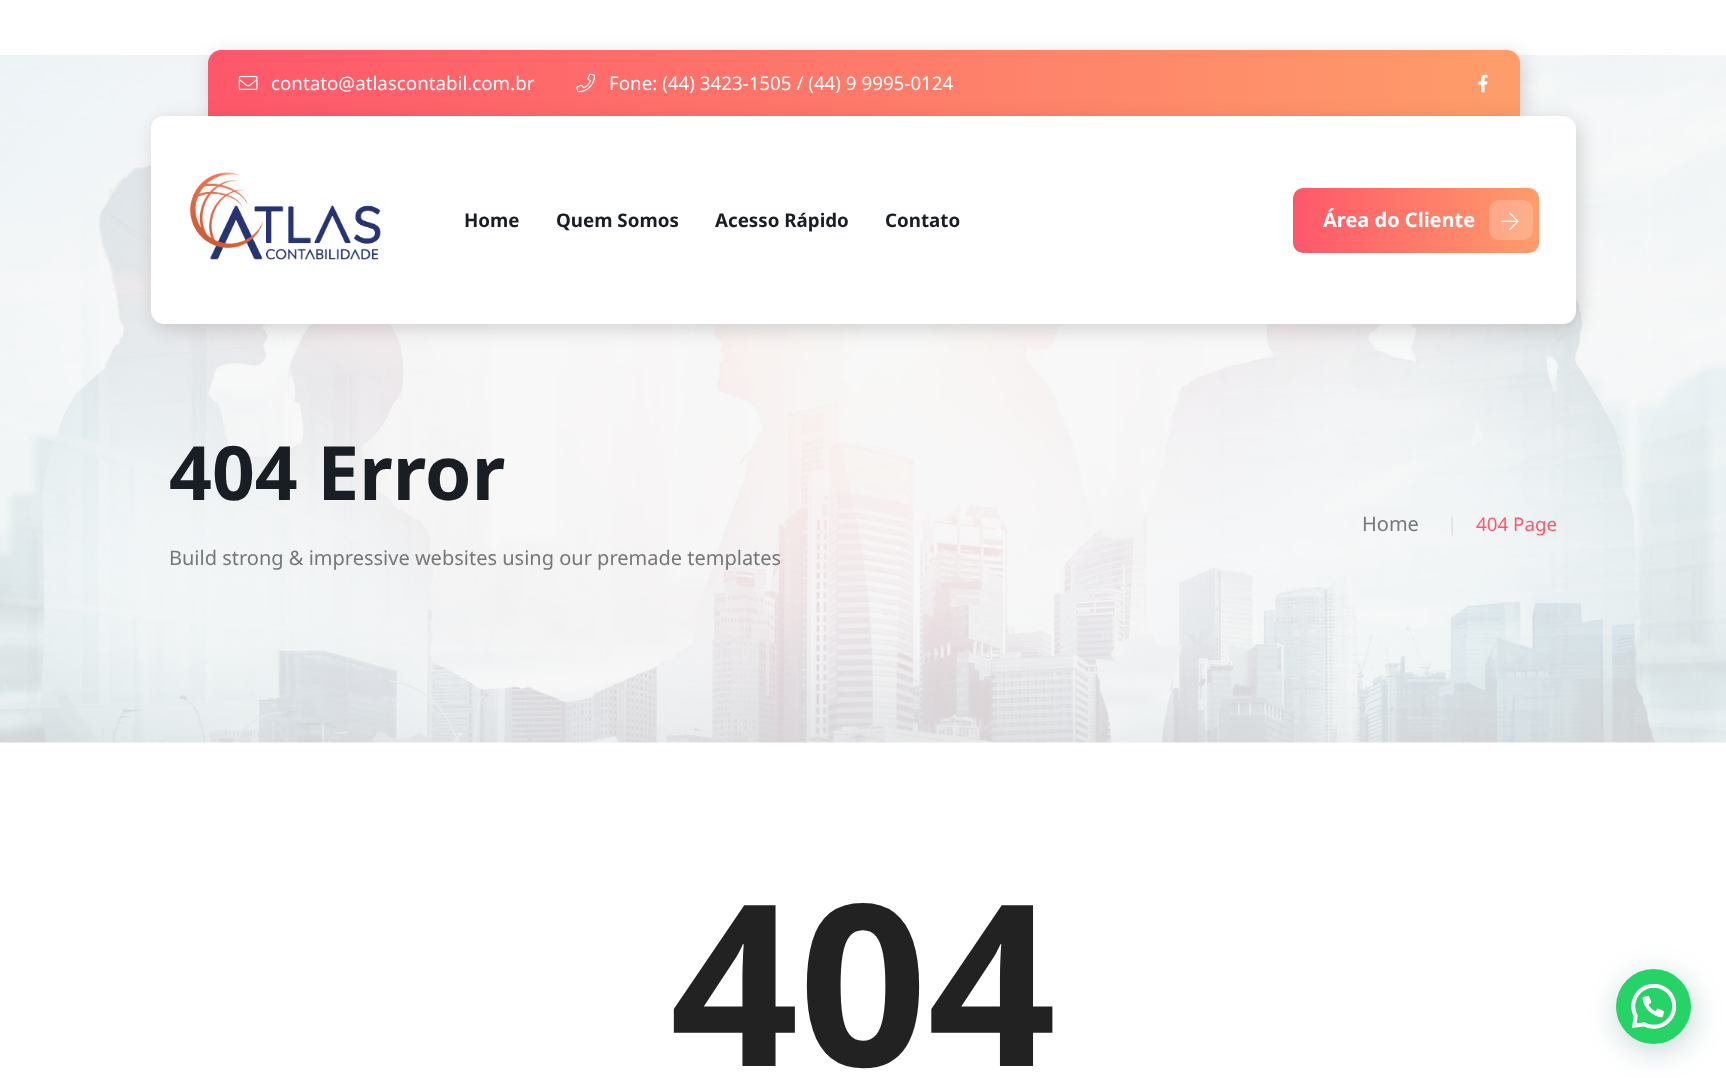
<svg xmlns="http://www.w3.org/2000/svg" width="1726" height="1078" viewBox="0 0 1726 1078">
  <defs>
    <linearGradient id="g1" gradientUnits="userSpaceOnUse" x1="208" y1="83" x2="1520" y2="83"><stop offset="0" stop-color="rgb(254,87,107)"/><stop offset="1" stop-color="rgb(254,157,106)"/></linearGradient>
    <linearGradient id="g2" gradientUnits="userSpaceOnUse" x1="1293" y1="220" x2="1539" y2="220"><stop offset="0" stop-color="rgb(254,87,107)"/><stop offset="1" stop-color="rgb(254,157,106)"/></linearGradient>
  </defs>
  <rect width="100%" height="100%" fill="rgb(255,255,255)"/>
  <image x="0" y="55" width="1726" height="688" href="pic6.png"/>
  <rect x="211" y="55" width="1313" height="66" rx="13" fill="rgba(0,0,0,0.15)" filter="blur(9.5px)"/>
  <path d="M221 50H1507C1514 50 1520 56 1520 63V116H208V63C208 56 214 50 221 50Z" fill="url(#g1)"/>
  <image x="238" y="75" width="20" height="15" href="pic1.png"/>
  <text x="271" y="90" font-family="Noto Sans" font-size="18.75" fill="rgb(255,255,255)">contato@atlascontabil.com.br</text>
  <image x="576" y="73" width="19" height="20" href="pic2.png"/>
  <text x="609" y="90" font-family="Noto Sans" font-size="18.75" fill="rgb(255,255,255)">Fone: (44) 3423-1505 / (44) 9 9995-0124</text>
  <image x="1478" y="74" width="10" height="19" href="pic3.png"/>
  <rect x="155" y="121" width="1425" height="208" rx="13" fill="rgba(0,0,0,0.15)" filter="blur(9.5px)"/>
  <rect x="151" y="116" width="1425" height="208" rx="13" fill="rgb(255,255,255)"/>
  <image x="190" y="172" width="191" height="88" href="pic4.png"/>
  <g font-family="Noto Sans" font-size="18.75" font-weight="bold" fill="rgb(24,30,35)">
    <text x="464" y="227">Home</text>
    <text x="556" y="227">Quem Somos</text>
    <text x="715" y="227">Acesso Rápido</text>
    <text x="885" y="227">Contato</text>
  </g>
  <rect x="1293" y="188" width="246" height="65" rx="10" fill="url(#g2)"/>
  <text x="1323" y="227" font-family="Noto Sans" font-size="20" font-weight="bold" fill="rgb(255,255,255)">Área do Cliente</text>
  <rect x="1489" y="200" width="44" height="40" rx="10" fill="rgba(255,255,255,0.21)"/>
  <image x="1501" y="212" width="18" height="18" href="pic5.png"/>
  <text x="169" y="500" font-family="Noto Sans" font-size="75" font-weight="bold" fill="rgb(24,30,35)">404 Error</text>
  <g font-family="Noto Sans" font-size="20" fill="rgb(119,119,119)">
    <text x="169" y="565">Build strong &amp; impressive websites using our premade templates</text>
    <text x="1362" y="531">Home</text>
  </g>
  <text x="1447" y="531" font-family="Noto Sans" font-size="18.75" fill="rgb(221,221,221)">|</text>
  <text x="1476" y="531" font-family="Noto Sans" font-size="18.75" fill="rgb(254,87,107)">404 Page</text>
  <text x="670" y="1066" font-family="Noto Sans" font-size="225" font-weight="bold" fill="rgb(34,34,34)">404</text>
  <rect x="1618" y="976" width="75" height="75" rx="37.5" fill="rgba(7,94,84,0.24)" filter="blur(15px)"/>
  <circle cx="1653.5" cy="1006.5" r="37.5" fill="rgb(37,211,102)"/>
  <image x="1631" y="984" width="45" height="45" href="pic7.png"/>
</svg>
